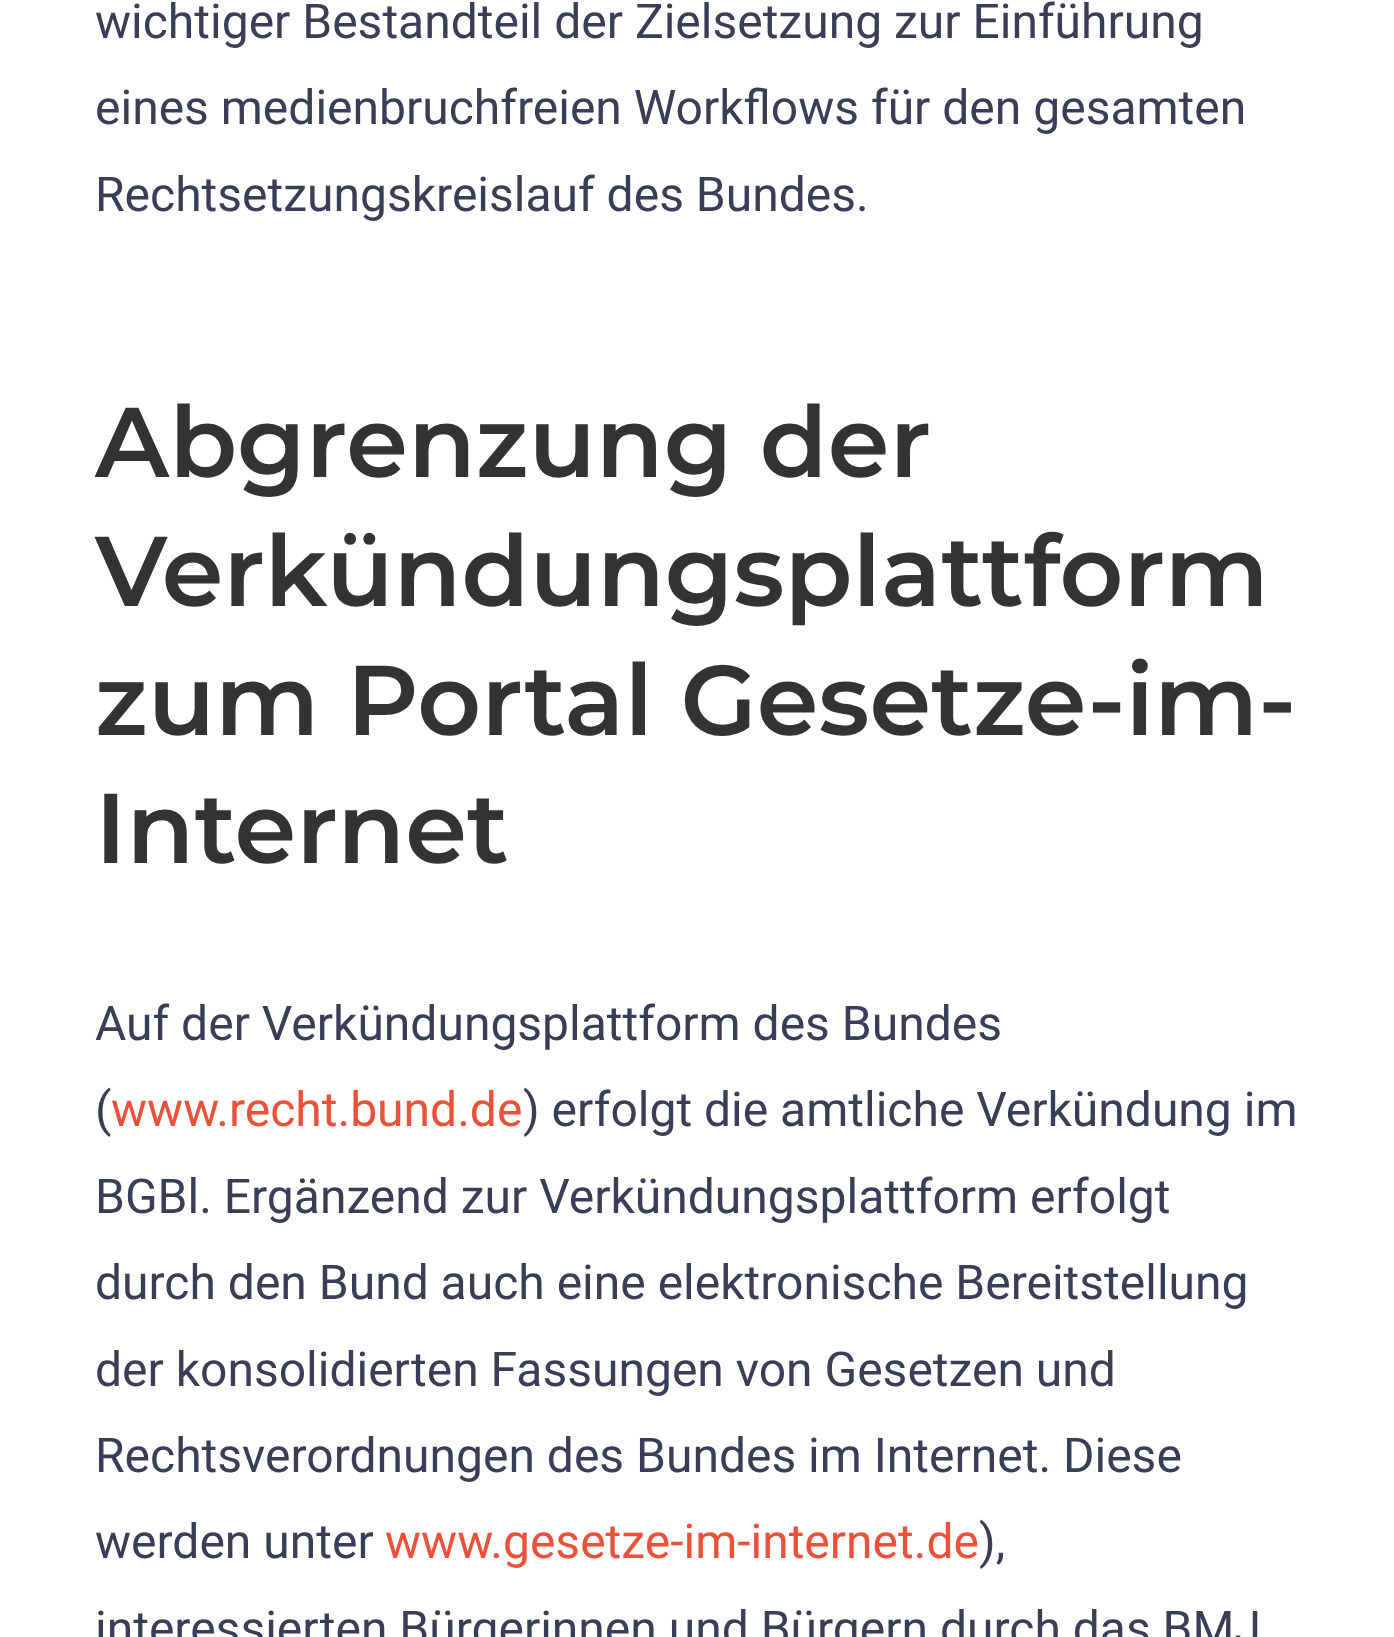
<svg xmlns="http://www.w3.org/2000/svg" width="1394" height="1637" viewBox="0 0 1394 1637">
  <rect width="100%" height="100%" fill="rgb(255,255,255)"/>
  <g font-family="Roboto" font-size="48" fill="rgb(59,61,86)">
    <text>
      <tspan x="95" y="38">wichtiger Bestandteil der Zielsetzung zur Einführung</tspan>
      <tspan x="95" y="124">eines medienbruchfreien Workflows für den gesamten</tspan>
      <tspan x="95" y="211">Rechtsetzungskreislauf des Bundes.</tspan>
    </text>
  </g>
  <g font-family="Montserrat" font-size="99" font-weight="600" fill="rgb(51,51,51)">
    <text>
      <tspan x="95" y="477">Abgrenzung der</tspan>
      <tspan x="95" y="606">Verkündungsplattform</tspan>
      <tspan x="95" y="735">zum Portal Gesetze-im-</tspan>
      <tspan x="95" y="863">Internet</tspan>
    </text>
  </g>
  <g font-family="Roboto" font-size="48" fill="rgb(59,61,86)">
    <text>
      <tspan x="95" y="1040">Auf der Verkündungsplattform des Bundes</tspan>
      <tspan x="95" y="1126">(</tspan>
    </text>
  </g>
  <text x="111" y="1126" font-family="Roboto" font-size="48" fill="rgb(234,81,57)">www.recht.bund.de</text>
  <g font-family="Roboto" font-size="48" fill="rgb(59,61,86)">
    <text x="523" y="1126">) erfolgt die amtliche Verkündung im</text>
    <text>
      <tspan x="95" y="1213">BGBl. Ergänzend zur Verkündungsplattform erfolgt</tspan>
      <tspan x="95" y="1299">durch den Bund auch eine elektronische Bereitstellung</tspan>
      <tspan x="95" y="1386">der konsolidierten Fassungen von Gesetzen und</tspan>
      <tspan x="95" y="1472">Rechtsverordnungen des Bundes im Internet. Diese</tspan>
      <tspan x="95" y="1558">werden unter</tspan>
    </text>
  </g>
  <text x="385" y="1558" font-family="Roboto" font-size="48" fill="rgb(234,81,57)">www.gesetze-im-internet.de</text>
  <g font-family="Roboto" font-size="48" fill="rgb(59,61,86)">
    <text x="979" y="1558">),</text>
    <text x="95" y="1645">interessierten Bürgerinnen und Bürgern durch das BMJ</text>
  </g>
</svg>
